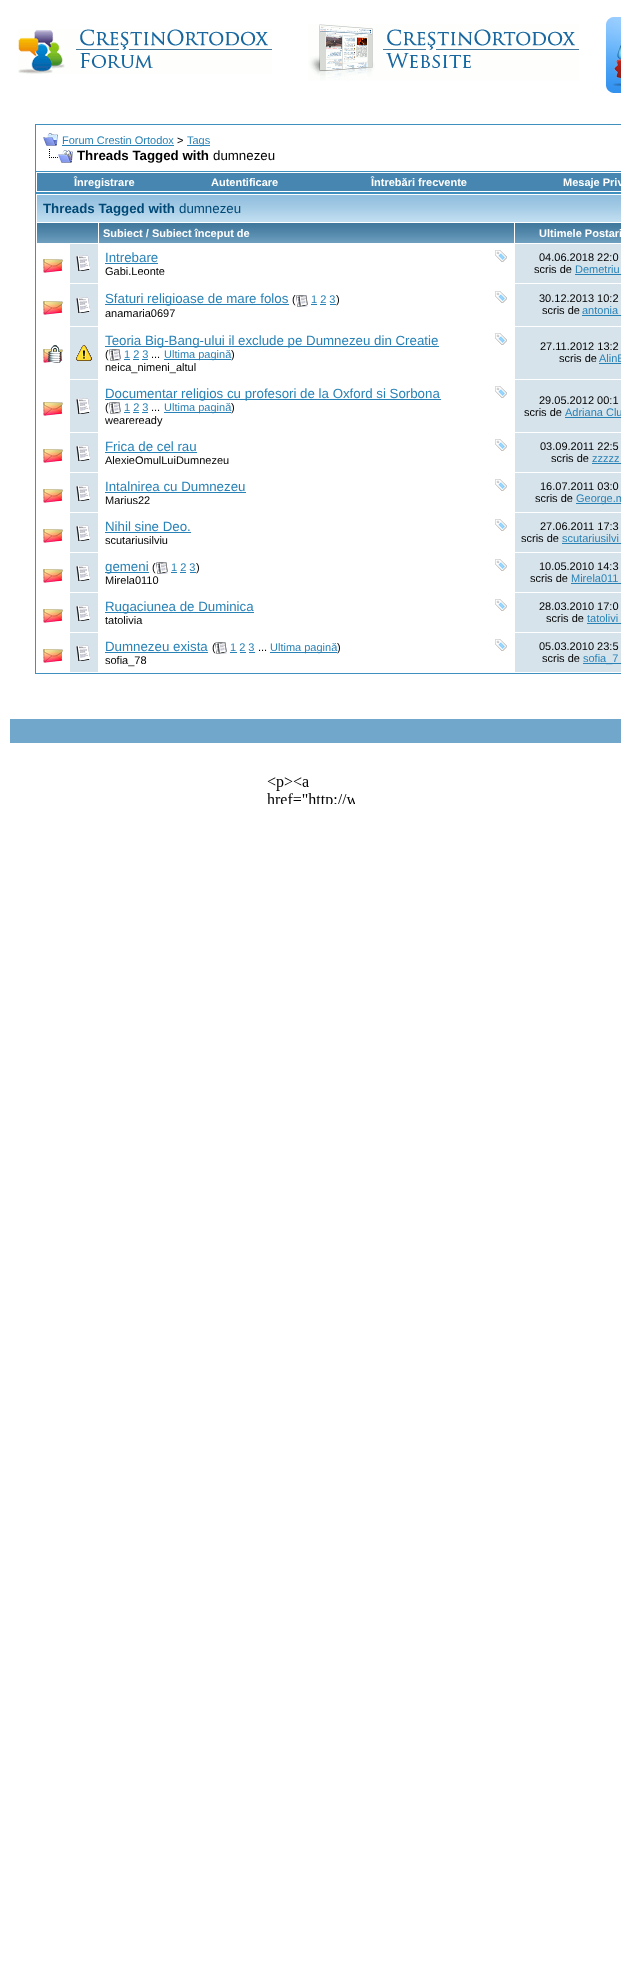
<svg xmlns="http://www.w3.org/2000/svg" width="621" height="1987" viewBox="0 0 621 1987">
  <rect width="100%" height="100%" fill="rgb(255,255,255)"/>
  <image x="18" y="29" width="254" height="45" href="pic1.png"/>
  <image x="308" y="24" width="271" height="57" href="pic2.png"/>
  <image x="606" y="17" width="15" height="76" href="pic3.png"/>
  <rect x="35.5" y="124.5" width="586" height="47" fill="none" stroke="rgb(63,144,190)"/>
  <image x="43" y="133" width="15" height="13" href="pic4.png"/>
  <text x="62" y="144" font-family="Liberation Sans" font-size="11" fill="rgb(41,130,182)">Forum Crestin Ortodox</text>
  <rect x="62" y="145" width="112" height="1" fill="rgb(41,130,182)"/>
  <text x="177" y="144" font-family="Liberation Sans" font-size="11" fill="rgb(0,0,0)">&gt;</text>
  <rect x="187" y="145" width="23" height="1" fill="rgb(41,130,182)"/>
  <text x="187" y="144" font-family="Liberation Sans" font-size="11" fill="rgb(41,130,182)">Tags</text>
  <image x="49" y="149" width="24" height="14" href="pic5.png"/>
  <text x="77" y="160" font-family="Liberation Sans" font-size="13.3" font-weight="bold" fill="rgb(0,0,0)">Threads Tagged with</text>
  <text x="213" y="160" font-family="Liberation Sans" font-size="13.3" fill="rgb(0,0,0)">dumnezeu</text>
  <rect x="35" y="192" width="586" height="1" fill="rgb(63,144,190)"/>
  <rect x="35" y="172" width="1" height="21" fill="rgb(63,144,190)"/>
  <rect x="37" y="173" width="584" height="18" fill="rgb(70,134,176)"/>
  <g font-family="Liberation Sans" font-size="11" font-weight="bold" fill="rgb(255,255,255)">
    <text x="74" y="186">Înregistrare</text>
    <text x="211" y="186">Autentificare</text>
    <text x="371" y="186">Întrebări frecvente</text>
    <text x="563" y="186">Mesaje Priv</text>
  </g>
  <rect x="35.5" y="193.5" width="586" height="480" fill="none" stroke="rgb(63,144,190)"/>
  <image x="37" y="195" width="584" height="27" href="pic6.png"/>
  <text x="43" y="213" font-family="Liberation Sans" font-size="13.3" font-weight="bold" fill="rgb(0,73,118)">Threads Tagged with</text>
  <text x="179" y="213" font-family="Liberation Sans" font-size="13.3" fill="rgb(0,73,118)">dumnezeu</text>
  <image x="37" y="223" width="61" height="20" href="pic7.png"/>
  <image x="99" y="223" width="415" height="20" href="pic8.png"/>
  <text x="103" y="237" font-family="Liberation Sans" font-size="11" font-weight="bold" fill="rgb(255,255,255)">Subiect / Subiect început de</text>
  <image x="515" y="223" width="106" height="20" href="pic9.png"/>
  <text x="539" y="237" font-family="Liberation Sans" font-size="11" font-weight="bold" fill="rgb(255,255,255)">Ultimele Postari</text>
  <image x="43" y="259" width="20" height="14" href="pic10.png"/>
  <rect x="70" y="244" width="28" height="39" fill="rgb(214,227,235)"/>
  <image x="76" y="255" width="15" height="16" href="pic11.png"/>
  <text x="105" y="262" font-family="Liberation Sans" font-size="13.3" fill="rgb(41,130,182)">Intrebare</text>
  <rect x="105" y="263" width="53" height="1" fill="rgb(41,130,182)"/>
  <image x="495" y="250" width="12" height="12" href="pic12.png"/>
  <text x="105" y="275" font-family="Liberation Sans" font-size="11" fill="rgb(0,0,0)">Gabi.Leonte</text>
  <rect x="515" y="244" width="106" height="39" fill="rgb(214,227,235)"/>
  <g font-family="Liberation Sans" font-size="11" fill="rgb(0,0,0)">
    <text x="539" y="261">04.06.2018 22:0</text>
    <text x="534" y="273">scris de</text>
  </g>
  <text x="575" y="273" font-family="Liberation Sans" font-size="11" fill="rgb(41,130,182)">Demetriu</text>
  <rect x="575" y="274" width="46" height="1" fill="rgb(41,130,182)"/>
  <image x="43" y="301" width="20" height="14" href="pic10.png"/>
  <rect x="70" y="284" width="28" height="42" fill="rgb(214,227,235)"/>
  <image x="76" y="297" width="15" height="16" href="pic11.png"/>
  <rect x="105" y="304" width="184" height="1" fill="rgb(41,130,182)"/>
  <text x="105" y="303" font-family="Liberation Sans" font-size="13.3" fill="rgb(41,130,182)">Sfaturi religioase de mare folos</text>
  <text x="292" y="303" font-family="Liberation Sans" font-size="11" fill="rgb(0,0,0)">(</text>
  <image x="296" y="295" width="12" height="12" href="pic13.png"/>
  <text x="311" y="303" font-family="Liberation Sans" font-size="11" fill="rgb(41,130,182)">1 2 3</text>
  <rect x="311" y="304" width="6" height="1" fill="rgb(41,130,182)"/>
  <rect x="320" y="304" width="6" height="1" fill="rgb(41,130,182)"/>
  <rect x="330" y="304" width="6" height="1" fill="rgb(41,130,182)"/>
  <text x="336" y="303" font-family="Liberation Sans" font-size="11" fill="rgb(0,0,0)">)</text>
  <image x="495" y="291" width="12" height="12" href="pic12.png"/>
  <text x="105" y="317" font-family="Liberation Sans" font-size="11" fill="rgb(0,0,0)">anamaria0697</text>
  <rect x="515" y="284" width="106" height="42" fill="rgb(214,227,235)"/>
  <g font-family="Liberation Sans" font-size="11" fill="rgb(0,0,0)">
    <text x="539" y="302">30.12.2013 10:2</text>
    <text x="542" y="314">scris de</text>
  </g>
  <text x="582" y="314" font-family="Liberation Sans" font-size="11" fill="rgb(41,130,182)">antonia</text>
  <rect x="582" y="315" width="39" height="1" fill="rgb(41,130,182)"/>
  <image x="43" y="345" width="20" height="18" href="pic14.png"/>
  <rect x="70" y="327" width="28" height="52" fill="rgb(214,227,235)"/>
  <image x="76" y="345" width="16" height="16" href="pic15.png"/>
  <rect x="105" y="346" width="334" height="1" fill="rgb(41,130,182)"/>
  <text x="105" y="345" font-family="Liberation Sans" font-size="13.3" fill="rgb(41,130,182)">Teoria Big-Bang-ului il exclude pe Dumnezeu din Creatie</text>
  <image x="495" y="333" width="12" height="12" href="pic12.png"/>
  <text x="105" y="358" font-family="Liberation Sans" font-size="11" fill="rgb(0,0,0)">(</text>
  <image x="109" y="349" width="12" height="12" href="pic13.png"/>
  <text x="124" y="358" font-family="Liberation Sans" font-size="11" fill="rgb(41,130,182)">1 2 3</text>
  <rect x="124" y="359" width="6" height="1" fill="rgb(41,130,182)"/>
  <rect x="133" y="359" width="6" height="1" fill="rgb(41,130,182)"/>
  <text x="151" y="358" font-family="Liberation Sans" font-size="11" fill="rgb(0,0,0)">...</text>
  <rect x="142" y="359" width="6" height="1" fill="rgb(41,130,182)"/>
  <rect x="164" y="359" width="67" height="1" fill="rgb(41,130,182)"/>
  <text x="164" y="358" font-family="Liberation Sans" font-size="11" fill="rgb(41,130,182)">Ultima pagină</text>
  <g font-family="Liberation Sans" font-size="11" fill="rgb(0,0,0)">
    <text x="231" y="358">)</text>
    <text x="105" y="371">neica_nimeni_altul</text>
  </g>
  <rect x="515" y="327" width="106" height="52" fill="rgb(214,227,235)"/>
  <g font-family="Liberation Sans" font-size="11" fill="rgb(0,0,0)">
    <text x="540" y="350">27.11.2012 13:2</text>
    <text x="559" y="362">scris de</text>
  </g>
  <text x="599" y="362" font-family="Liberation Sans" font-size="11" fill="rgb(41,130,182)">AlinB</text>
  <rect x="599" y="363" width="22" height="1" fill="rgb(41,130,182)"/>
  <image x="43" y="402" width="20" height="14" href="pic10.png"/>
  <rect x="70" y="380" width="28" height="52" fill="rgb(214,227,235)"/>
  <image x="76" y="398" width="15" height="16" href="pic11.png"/>
  <rect x="105" y="399" width="336" height="1" fill="rgb(41,130,182)"/>
  <text x="105" y="398" font-family="Liberation Sans" font-size="13.3" fill="rgb(41,130,182)">Documentar religios cu profesori de la Oxford si Sorbona</text>
  <image x="495" y="386" width="12" height="12" href="pic12.png"/>
  <text x="105" y="411" font-family="Liberation Sans" font-size="11" fill="rgb(0,0,0)">(</text>
  <image x="109" y="402" width="12" height="12" href="pic13.png"/>
  <text x="124" y="411" font-family="Liberation Sans" font-size="11" fill="rgb(41,130,182)">1 2 3</text>
  <rect x="124" y="412" width="6" height="1" fill="rgb(41,130,182)"/>
  <rect x="133" y="412" width="6" height="1" fill="rgb(41,130,182)"/>
  <text x="151" y="411" font-family="Liberation Sans" font-size="11" fill="rgb(0,0,0)">...</text>
  <rect x="142" y="412" width="6" height="1" fill="rgb(41,130,182)"/>
  <rect x="164" y="412" width="67" height="1" fill="rgb(41,130,182)"/>
  <text x="164" y="411" font-family="Liberation Sans" font-size="11" fill="rgb(41,130,182)">Ultima pagină</text>
  <g font-family="Liberation Sans" font-size="11" fill="rgb(0,0,0)">
    <text x="231" y="411">)</text>
    <text x="105" y="424">weareready</text>
  </g>
  <rect x="515" y="380" width="106" height="52" fill="rgb(214,227,235)"/>
  <g font-family="Liberation Sans" font-size="11" fill="rgb(0,0,0)">
    <text x="539" y="404">29.05.2012 00:1</text>
    <text x="524" y="416">scris de</text>
  </g>
  <text x="565" y="416" font-family="Liberation Sans" font-size="11" fill="rgb(41,130,182)">Adriana Clu</text>
  <rect x="565" y="417" width="56" height="1" fill="rgb(41,130,182)"/>
  <image x="43" y="449" width="20" height="14" href="pic10.png"/>
  <rect x="70" y="433" width="28" height="39" fill="rgb(214,227,235)"/>
  <image x="76" y="445" width="15" height="16" href="pic11.png"/>
  <text x="105" y="451" font-family="Liberation Sans" font-size="13.3" fill="rgb(41,130,182)">Frica de cel rau</text>
  <rect x="105" y="452" width="92" height="1" fill="rgb(41,130,182)"/>
  <image x="495" y="439" width="12" height="12" href="pic12.png"/>
  <text x="105" y="464" font-family="Liberation Sans" font-size="11" fill="rgb(0,0,0)">AlexieOmulLuiDumnezeu</text>
  <rect x="515" y="433" width="106" height="39" fill="rgb(214,227,235)"/>
  <g font-family="Liberation Sans" font-size="11" fill="rgb(0,0,0)">
    <text x="540" y="450">03.09.2011 22:5</text>
    <text x="551" y="462">scris de</text>
  </g>
  <text x="592" y="462" font-family="Liberation Sans" font-size="11" fill="rgb(41,130,182)">zzzzz</text>
  <rect x="592" y="463" width="29" height="1" fill="rgb(41,130,182)"/>
  <image x="43" y="489" width="20" height="14" href="pic10.png"/>
  <rect x="70" y="473" width="28" height="39" fill="rgb(214,227,235)"/>
  <image x="76" y="485" width="15" height="16" href="pic11.png"/>
  <text x="105" y="491" font-family="Liberation Sans" font-size="13.3" fill="rgb(41,130,182)">Intalnirea cu Dumnezeu</text>
  <rect x="105" y="492" width="141" height="1" fill="rgb(41,130,182)"/>
  <image x="495" y="479" width="12" height="12" href="pic12.png"/>
  <text x="105" y="504" font-family="Liberation Sans" font-size="11" fill="rgb(0,0,0)">Marius22</text>
  <rect x="515" y="473" width="106" height="39" fill="rgb(214,227,235)"/>
  <g font-family="Liberation Sans" font-size="11" fill="rgb(0,0,0)">
    <text x="540" y="490">16.07.2011 03:0</text>
    <text x="535" y="502">scris de</text>
  </g>
  <rect x="576" y="503" width="45" height="1" fill="rgb(41,130,182)"/>
  <text x="576" y="502" font-family="Liberation Sans" font-size="11" fill="rgb(41,130,182)">George.m</text>
  <image x="43" y="529" width="20" height="14" href="pic10.png"/>
  <rect x="70" y="513" width="28" height="39" fill="rgb(214,227,235)"/>
  <image x="76" y="525" width="15" height="16" href="pic11.png"/>
  <text x="105" y="531" font-family="Liberation Sans" font-size="13.3" fill="rgb(41,130,182)">Nihil sine Deo.</text>
  <rect x="105" y="532" width="86" height="1" fill="rgb(41,130,182)"/>
  <image x="495" y="519" width="12" height="12" href="pic12.png"/>
  <text x="105" y="544" font-family="Liberation Sans" font-size="11" fill="rgb(0,0,0)">scutariusilviu</text>
  <rect x="515" y="513" width="106" height="39" fill="rgb(214,227,235)"/>
  <g font-family="Liberation Sans" font-size="11" fill="rgb(0,0,0)">
    <text x="540" y="530">27.06.2011 17:3</text>
    <text x="521" y="542">scris de</text>
  </g>
  <text x="562" y="542" font-family="Liberation Sans" font-size="11" fill="rgb(41,130,182)">scutariusilvi</text>
  <rect x="562" y="543" width="59" height="1" fill="rgb(41,130,182)"/>
  <image x="43" y="569" width="20" height="14" href="pic10.png"/>
  <rect x="70" y="553" width="28" height="39" fill="rgb(214,227,235)"/>
  <image x="76" y="565" width="15" height="16" href="pic11.png"/>
  <rect x="105" y="572" width="44" height="1" fill="rgb(41,130,182)"/>
  <text x="105" y="571" font-family="Liberation Sans" font-size="13.3" fill="rgb(41,130,182)">gemeni</text>
  <text x="152" y="571" font-family="Liberation Sans" font-size="11" fill="rgb(0,0,0)">(</text>
  <image x="156" y="562" width="12" height="12" href="pic13.png"/>
  <text x="171" y="571" font-family="Liberation Sans" font-size="11" fill="rgb(41,130,182)">1 2 3</text>
  <rect x="171" y="572" width="6" height="1" fill="rgb(41,130,182)"/>
  <rect x="180" y="572" width="6" height="1" fill="rgb(41,130,182)"/>
  <rect x="190" y="572" width="6" height="1" fill="rgb(41,130,182)"/>
  <text x="196" y="571" font-family="Liberation Sans" font-size="11" fill="rgb(0,0,0)">)</text>
  <image x="495" y="559" width="12" height="12" href="pic12.png"/>
  <text x="105" y="584" font-family="Liberation Sans" font-size="11" fill="rgb(0,0,0)">Mirela0110</text>
  <rect x="515" y="553" width="106" height="39" fill="rgb(214,227,235)"/>
  <g font-family="Liberation Sans" font-size="11" fill="rgb(0,0,0)">
    <text x="539" y="570">10.05.2010 14:3</text>
    <text x="530" y="582">scris de</text>
  </g>
  <text x="571" y="582" font-family="Liberation Sans" font-size="11" fill="rgb(41,130,182)">Mirela011</text>
  <rect x="571" y="583" width="50" height="1" fill="rgb(41,130,182)"/>
  <image x="43" y="609" width="20" height="14" href="pic10.png"/>
  <rect x="70" y="593" width="28" height="39" fill="rgb(214,227,235)"/>
  <image x="76" y="605" width="15" height="16" href="pic11.png"/>
  <rect x="105" y="612" width="149" height="1" fill="rgb(41,130,182)"/>
  <text x="105" y="611" font-family="Liberation Sans" font-size="13.3" fill="rgb(41,130,182)">Rugaciunea de Duminica</text>
  <image x="495" y="599" width="12" height="12" href="pic12.png"/>
  <text x="105" y="624" font-family="Liberation Sans" font-size="11" fill="rgb(0,0,0)">tatolivia</text>
  <rect x="515" y="593" width="106" height="39" fill="rgb(214,227,235)"/>
  <g font-family="Liberation Sans" font-size="11" fill="rgb(0,0,0)">
    <text x="539" y="610">28.03.2010 17:0</text>
    <text x="546" y="622">scris de</text>
  </g>
  <text x="587" y="622" font-family="Liberation Sans" font-size="11" fill="rgb(41,130,182)">tatolivi</text>
  <rect x="587" y="623" width="34" height="1" fill="rgb(41,130,182)"/>
  <image x="43" y="649" width="20" height="14" href="pic10.png"/>
  <rect x="70" y="633" width="28" height="39" fill="rgb(214,227,235)"/>
  <image x="76" y="645" width="15" height="16" href="pic11.png"/>
  <text x="105" y="651" font-family="Liberation Sans" font-size="13.3" fill="rgb(41,130,182)">Dumnezeu exista</text>
  <rect x="105" y="652" width="103" height="1" fill="rgb(41,130,182)"/>
  <text x="212" y="651" font-family="Liberation Sans" font-size="11" fill="rgb(0,0,0)">(</text>
  <image x="215" y="642" width="12" height="12" href="pic16.png"/>
  <text x="230" y="651" font-family="Liberation Sans" font-size="11" fill="rgb(41,130,182)">1 2 3</text>
  <rect x="230" y="652" width="7" height="1" fill="rgb(41,130,182)"/>
  <rect x="240" y="652" width="6" height="1" fill="rgb(41,130,182)"/>
  <text x="258" y="651" font-family="Liberation Sans" font-size="11" fill="rgb(0,0,0)">...</text>
  <rect x="249" y="652" width="6" height="1" fill="rgb(41,130,182)"/>
  <rect x="270" y="652" width="67" height="1" fill="rgb(41,130,182)"/>
  <text x="270" y="651" font-family="Liberation Sans" font-size="11" fill="rgb(41,130,182)">Ultima pagină</text>
  <text x="337" y="651" font-family="Liberation Sans" font-size="11" fill="rgb(0,0,0)">)</text>
  <image x="495" y="639" width="12" height="12" href="pic12.png"/>
  <text x="105" y="664" font-family="Liberation Sans" font-size="11" fill="rgb(0,0,0)">sofia_78</text>
  <rect x="515" y="633" width="106" height="39" fill="rgb(214,227,235)"/>
  <g font-family="Liberation Sans" font-size="11" fill="rgb(0,0,0)">
    <text x="539" y="650">05.03.2010 23:5</text>
    <text x="542" y="662">scris de</text>
  </g>
  <rect x="583" y="663" width="38" height="1" fill="rgb(41,130,182)"/>
  <text x="583" y="662" font-family="Liberation Sans" font-size="11" fill="rgb(41,130,182)">sofia_7</text>
  <rect x="10" y="719" width="611" height="24" fill="rgb(112,167,202)"/>
  <image x="267" y="777" width="88" height="27" href="pic17.png"/>
</svg>
